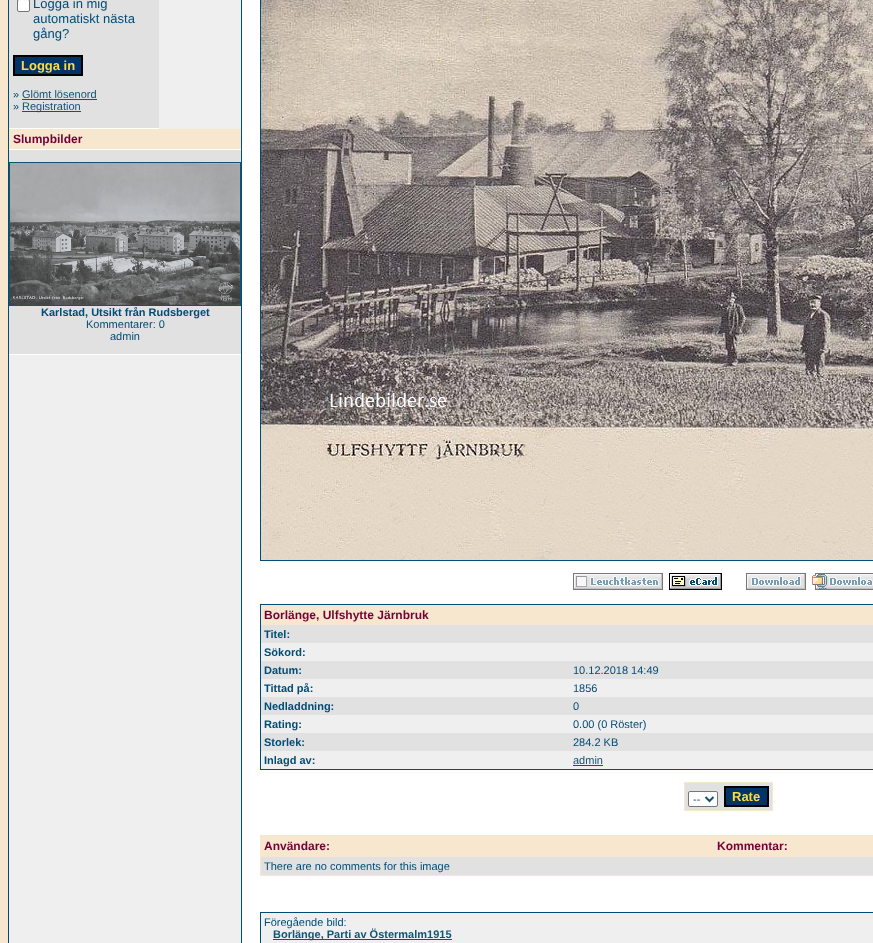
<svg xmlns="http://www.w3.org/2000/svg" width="873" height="943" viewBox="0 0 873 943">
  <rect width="100%" height="100%" fill="rgb(247,231,206)"/>
  <rect x="8" y="0" width="1" height="943" fill="rgb(0,76,117)"/>
  <rect x="242" y="0" width="631" height="943" fill="rgb(255,255,255)"/>
  <rect x="9" y="0" width="232" height="943" fill="rgb(239,239,239)"/>
  <rect x="9" y="0" width="150" height="128" fill="rgb(225,225,225)"/>
  <rect x="17.5" y="-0.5" width="12" height="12" rx="1.5" fill="rgb(255,255,255)" stroke="rgb(118,118,118)"/>
  <g font-family="Liberation Sans" font-size="13" fill="rgb(0,76,117)">
    <text>
      <tspan x="33" y="8">Logga in mig</tspan>
      <tspan x="33" y="23">automatiskt nästa</tspan>
      <tspan x="33" y="38">gång?</tspan>
    </text>
  </g>
  <rect x="14" y="56" width="68" height="19" fill="rgb(0,51,102)" stroke="rgb(0,0,0)" stroke-width="2"/>
  <text x="21" y="70" font-family="Liberation Sans" font-size="13" font-weight="bold" fill="rgb(252,220,67)">Logga in</text>
  <text x="13" y="98" font-family="Liberation Sans" font-size="11" fill="rgb(0,76,117)">»</text>
  <text x="22" y="98" font-family="Liberation Sans" font-size="11" fill="rgb(15,84,117)">Glömt lösenord</text>
  <rect x="22" y="99" width="75" height="1" fill="rgb(15,84,117)"/>
  <text x="13" y="110" font-family="Liberation Sans" font-size="11" fill="rgb(0,76,117)">»</text>
  <rect x="22" y="111" width="59" height="1" fill="rgb(15,84,117)"/>
  <text x="22" y="110" font-family="Liberation Sans" font-size="11" fill="rgb(15,84,117)">Registration</text>
  <rect x="9" y="128" width="150" height="1" fill="rgb(255,255,255)"/>
  <rect x="9" y="129" width="232" height="20" fill="rgb(247,231,206)"/>
  <text x="13" y="143" font-family="Liberation Sans" font-size="12" font-weight="bold" fill="rgb(117,0,54)">Slumpbilder</text>
  <rect x="9" y="149" width="232" height="1" fill="rgb(255,255,255)"/>
  <rect x="9" y="150" width="232" height="204" fill="rgb(225,225,225)"/>
  <rect x="9.5" y="162.5" width="231" height="143" fill="none" stroke="rgb(15,84,117)"/>
  <image x="10" y="163" width="230" height="142" href="pic1.png"/>
  <text x="41" y="316" font-family="Liberation Sans" font-size="11" font-weight="bold" fill="rgb(0,76,117)">Karlstad, Utsikt från Rudsberget</text>
  <g font-family="Liberation Sans" font-size="11" fill="rgb(0,76,117)">
    <text x="86" y="328">Kommentarer: 0</text>
    <text x="110" y="340">admin</text>
  </g>
  <rect x="9" y="354" width="232" height="1" fill="rgb(255,255,255)"/>
  <rect x="241" y="0" width="1" height="943" fill="rgb(0,76,117)"/>
  <rect x="260.5" y="-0.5" width="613" height="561" fill="none" stroke="rgb(0,76,117)"/>
  <image x="261" y="0" width="612" height="560" href="pic2.png"/>
  <image x="573" y="573" width="90" height="17" href="pic3.png"/>
  <image x="669" y="573" width="53" height="17" href="pic4.png"/>
  <image x="746" y="573" width="60" height="17" href="pic5.png"/>
  <image x="812" y="573" width="61" height="17" href="pic6.png"/>
  <rect x="260" y="604" width="613" height="166" fill="rgb(0,76,117)"/>
  <rect x="261" y="605" width="612" height="20" fill="rgb(247,231,206)"/>
  <text x="264" y="619" font-family="Liberation Sans" font-size="12" font-weight="bold" fill="rgb(117,0,54)">Borlänge, Ulfshytte Järnbruk</text>
  <rect x="261" y="625" width="612" height="18" fill="rgb(225,225,225)"/>
  <text x="264" y="638" font-family="Liberation Sans" font-size="11" font-weight="bold" fill="rgb(0,76,117)">Titel:</text>
  <rect x="261" y="643" width="612" height="18" fill="rgb(239,239,239)"/>
  <text x="264" y="656" font-family="Liberation Sans" font-size="11" font-weight="bold" fill="rgb(0,76,117)">Sökord:</text>
  <rect x="261" y="661" width="612" height="18" fill="rgb(225,225,225)"/>
  <text x="264" y="674" font-family="Liberation Sans" font-size="11" font-weight="bold" fill="rgb(0,76,117)">Datum:</text>
  <text x="573" y="674" font-family="Liberation Sans" font-size="11" fill="rgb(0,76,117)">10.12.2018 14:49</text>
  <rect x="261" y="679" width="612" height="18" fill="rgb(239,239,239)"/>
  <text x="264" y="692" font-family="Liberation Sans" font-size="11" font-weight="bold" fill="rgb(0,76,117)">Tittad på:</text>
  <text x="573" y="692" font-family="Liberation Sans" font-size="11" fill="rgb(0,76,117)">1856</text>
  <rect x="261" y="697" width="612" height="18" fill="rgb(225,225,225)"/>
  <text x="264" y="710" font-family="Liberation Sans" font-size="11" font-weight="bold" fill="rgb(0,76,117)">Nedladdning:</text>
  <text x="573" y="710" font-family="Liberation Sans" font-size="11" fill="rgb(0,76,117)">0</text>
  <rect x="261" y="715" width="612" height="18" fill="rgb(239,239,239)"/>
  <text x="264" y="728" font-family="Liberation Sans" font-size="11" font-weight="bold" fill="rgb(0,76,117)">Rating:</text>
  <text x="573" y="728" font-family="Liberation Sans" font-size="11" fill="rgb(0,76,117)">0.00 (0 Röster)</text>
  <rect x="261" y="733" width="612" height="18" fill="rgb(225,225,225)"/>
  <text x="264" y="746" font-family="Liberation Sans" font-size="11" font-weight="bold" fill="rgb(0,76,117)">Storlek:</text>
  <text x="573" y="746" font-family="Liberation Sans" font-size="11" fill="rgb(0,76,117)">284.2 KB</text>
  <rect x="261" y="751" width="612" height="18" fill="rgb(239,239,239)"/>
  <text x="264" y="764" font-family="Liberation Sans" font-size="11" font-weight="bold" fill="rgb(0,76,117)">Inlagd av:</text>
  <text x="573" y="764" font-family="Liberation Sans" font-size="11" fill="rgb(15,84,117)">admin</text>
  <rect x="573" y="765" width="30" height="1" fill="rgb(15,84,117)"/>
  <rect x="684" y="782" width="89" height="29" fill="rgb(247,231,206)"/>
  <rect x="685" y="783" width="87" height="27" fill="rgb(225,225,225)"/>
  <rect x="688.5" y="791.5" width="29" height="15" rx="1.5" fill="rgb(255,255,255)" stroke="rgb(118,118,118)"/>
  <path d="M705.5 797L709.5 801L713.5 797" fill="none" stroke="rgb(15,84,117)" stroke-width="2"/>
  <text x="693" y="803" font-family="Liberation Sans" font-size="11" fill="rgb(15,84,117)">--</text>
  <rect x="725" y="787" width="43" height="19" fill="rgb(0,51,102)" stroke="rgb(0,0,0)" stroke-width="2"/>
  <text x="732" y="801" font-family="Liberation Sans" font-size="13" font-weight="bold" fill="rgb(252,220,67)">Rate</text>
  <rect x="260" y="835" width="613" height="41" fill="rgb(247,231,206)"/>
  <g font-family="Liberation Sans" font-size="12" font-weight="bold" fill="rgb(117,0,54)">
    <text x="264" y="850">Användare:</text>
    <text x="717" y="850">Kommentar:</text>
  </g>
  <rect x="261" y="857" width="612" height="18" fill="rgb(225,225,225)"/>
  <text x="264" y="870" font-family="Liberation Sans" font-size="11" fill="rgb(0,76,117)">There are no comments for this image</text>
  <rect x="260" y="912" width="613" height="31" fill="rgb(0,76,117)"/>
  <rect x="261" y="913" width="612" height="30" fill="rgb(239,239,239)"/>
  <text x="264" y="926" font-family="Liberation Sans" font-size="11" fill="rgb(0,76,117)">Föregående bild:</text>
  <rect x="273" y="939" width="179" height="1" fill="rgb(15,84,117)"/>
  <text x="273" y="938" font-family="Liberation Sans" font-size="11" font-weight="bold" fill="rgb(15,84,117)">Borlänge, Parti av Östermalm1915</text>
</svg>
